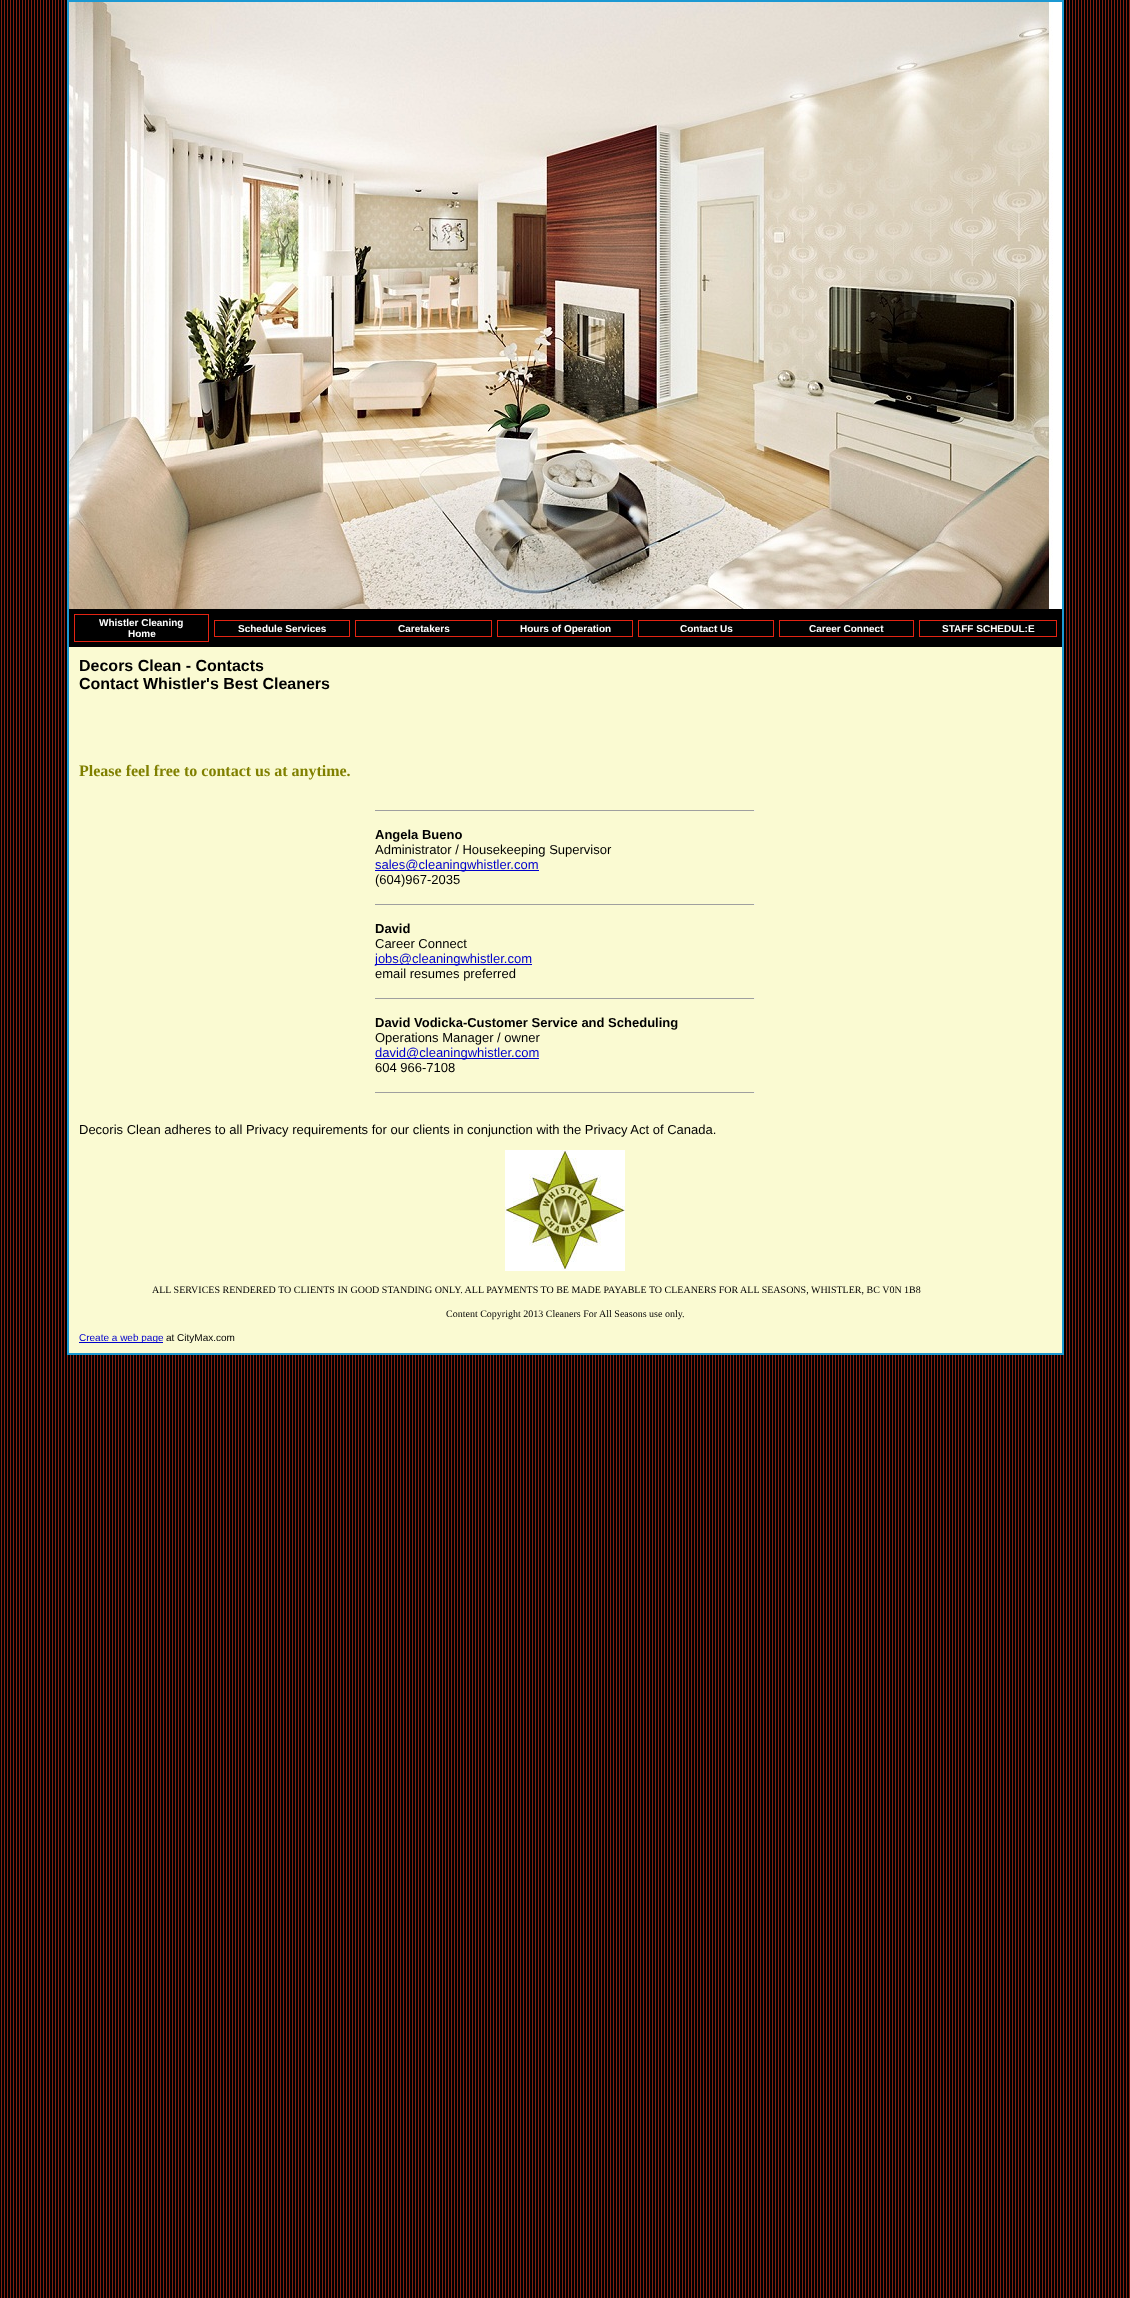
<svg xmlns="http://www.w3.org/2000/svg" width="1130" height="2298" viewBox="0 0 1130 2298">
  <rect width="100%" height="100%" fill="rgb(255,255,255)"/>
  <image x="0" y="0" width="1130" height="2298" href="pic1.png"/>
  <rect x="67" y="0" width="997" height="1355" fill="rgb(27,153,211)"/>
  <image x="1053" y="2" width="9" height="607" href="pic2.png"/>
  <image x="69" y="2" width="984" height="607" href="pic3.png"/>
  <rect x="69" y="609" width="993" height="38" fill="rgb(0,0,0)"/>
  <rect x="74" y="614" width="135" height="28" fill="rgb(227,35,18)"/>
  <rect x="75" y="615" width="133" height="26" fill="rgb(0,0,0)"/>
  <g font-family="Liberation Sans" font-size="10" font-weight="bold" fill="rgb(255,255,255)">
    <text x="99" y="626">Whistler Cleaning</text>
    <text x="128" y="637">Home</text>
  </g>
  <rect x="214" y="620" width="136" height="17" fill="rgb(227,35,18)"/>
  <rect x="215" y="621" width="134" height="15" fill="rgb(0,0,0)"/>
  <text x="238" y="632" font-family="Liberation Sans" font-size="10" font-weight="bold" fill="rgb(255,255,255)">Schedule Services</text>
  <rect x="355" y="620" width="137" height="17" fill="rgb(227,35,18)"/>
  <rect x="356" y="621" width="135" height="15" fill="rgb(0,0,0)"/>
  <text x="398" y="632" font-family="Liberation Sans" font-size="10" font-weight="bold" fill="rgb(255,255,255)">Caretakers</text>
  <rect x="497" y="620" width="136" height="17" fill="rgb(227,35,18)"/>
  <rect x="498" y="621" width="134" height="15" fill="rgb(0,0,0)"/>
  <text x="520" y="632" font-family="Liberation Sans" font-size="10" font-weight="bold" fill="rgb(255,255,255)">Hours of Operation</text>
  <rect x="638" y="620" width="136" height="17" fill="rgb(227,35,18)"/>
  <rect x="639" y="621" width="134" height="15" fill="rgb(0,0,0)"/>
  <text x="680" y="632" font-family="Liberation Sans" font-size="10" font-weight="bold" fill="rgb(255,255,255)">Contact Us</text>
  <rect x="779" y="620" width="135" height="17" fill="rgb(227,35,18)"/>
  <rect x="780" y="621" width="133" height="15" fill="rgb(0,0,0)"/>
  <text x="809" y="632" font-family="Liberation Sans" font-size="10" font-weight="bold" fill="rgb(255,255,255)">Career Connect</text>
  <rect x="919" y="620" width="138" height="17" fill="rgb(227,35,18)"/>
  <rect x="920" y="621" width="136" height="15" fill="rgb(0,0,0)"/>
  <text x="942" y="632" font-family="Liberation Sans" font-size="10" font-weight="bold" fill="rgb(255,255,255)">STAFF SCHEDUL:E</text>
  <rect x="69" y="647" width="993" height="706" fill="rgb(250,250,210)"/>
  <g font-family="Liberation Sans" font-size="16" font-weight="bold" fill="rgb(0,0,0)">
    <text>
      <tspan x="79" y="671">Decors Clean - Contacts</tspan>
      <tspan x="79" y="689">Contact Whistler's Best Cleaners</tspan>
    </text>
  </g>
  <text x="79" y="776" font-family="Liberation Serif" font-size="16" font-weight="bold" fill="rgb(128,128,0)">Please feel free to contact us at anytime.</text>
  <rect x="375" y="810" width="380" height="1" fill="rgb(159,159,159)"/>
  <rect x="754" y="810" width="1" height="1" fill="rgb(238,238,238)"/>
  <text x="375" y="839" font-family="Liberation Sans" font-size="13" font-weight="bold" fill="rgb(0,0,0)">Angela Bueno</text>
  <text x="375" y="854" font-family="Liberation Sans" font-size="13" fill="rgb(0,0,0)">Administrator / Housekeeping Supervisor</text>
  <rect x="375" y="870" width="164" height="1" fill="rgb(0,0,204)"/>
  <text x="375" y="869" font-family="Liberation Sans" font-size="13" fill="rgb(0,0,204)">sales@cleaningwhistler.com</text>
  <text x="375" y="884" font-family="Liberation Sans" font-size="13" fill="rgb(0,0,0)">(604)967-2035</text>
  <rect x="375" y="904" width="380" height="1" fill="rgb(159,159,159)"/>
  <rect x="754" y="904" width="1" height="1" fill="rgb(238,238,238)"/>
  <text x="375" y="933" font-family="Liberation Sans" font-size="13" font-weight="bold" fill="rgb(0,0,0)">David</text>
  <text x="375" y="948" font-family="Liberation Sans" font-size="13" fill="rgb(0,0,0)">Career Connect</text>
  <rect x="375" y="964" width="157" height="1" fill="rgb(0,0,204)"/>
  <text x="375" y="963" font-family="Liberation Sans" font-size="13" fill="rgb(0,0,204)">jobs@cleaningwhistler.com</text>
  <text x="375" y="978" font-family="Liberation Sans" font-size="13" fill="rgb(0,0,0)">email resumes preferred</text>
  <rect x="375" y="998" width="380" height="1" fill="rgb(159,159,159)"/>
  <rect x="754" y="998" width="1" height="1" fill="rgb(238,238,238)"/>
  <text x="375" y="1027" font-family="Liberation Sans" font-size="13" font-weight="bold" fill="rgb(0,0,0)">David Vodicka-Customer Service and Scheduling</text>
  <text x="375" y="1042" font-family="Liberation Sans" font-size="13" fill="rgb(0,0,0)">Operations Manager / owner</text>
  <rect x="375" y="1058" width="164" height="1" fill="rgb(0,0,204)"/>
  <text x="375" y="1057" font-family="Liberation Sans" font-size="13" fill="rgb(0,0,204)">david@cleaningwhistler.com</text>
  <text x="375" y="1072" font-family="Liberation Sans" font-size="13" fill="rgb(0,0,0)">604 966-7108</text>
  <rect x="375" y="1092" width="380" height="1" fill="rgb(159,159,159)"/>
  <rect x="754" y="1092" width="1" height="1" fill="rgb(238,238,238)"/>
  <text x="79" y="1134" font-family="Liberation Sans" font-size="13" fill="rgb(0,0,0)">Decoris Clean adheres to all Privacy requirements for our clients in conjunction with the Privacy Act of Canada.</text>
  <image x="505" y="1150" width="120" height="121" href="pic4.png"/>
  <g font-family="Liberation Serif" font-size="10" fill="rgb(0,0,0)">
    <text x="152" y="1293">ALL SERVICES RENDERED TO CLIENTS IN GOOD STANDING ONLY. ALL PAYMENTS TO BE MADE PAYABLE TO CLEANERS FOR ALL SEASONS, WHISTLER, BC V0N 1B8</text>
    <text x="446" y="1317">Content Copyright 2013 Cleaners For All Seasons use only.</text>
  </g>
  <rect x="79" y="1342" width="84" height="1" fill="rgb(0,0,204)"/>
  <text x="79" y="1341" font-family="Liberation Sans" font-size="10" fill="rgb(0,0,204)">Create a web page</text>
  <text x="166" y="1341" font-family="Liberation Sans" font-size="10" fill="rgb(0,0,0)">at CityMax.com</text>
</svg>
